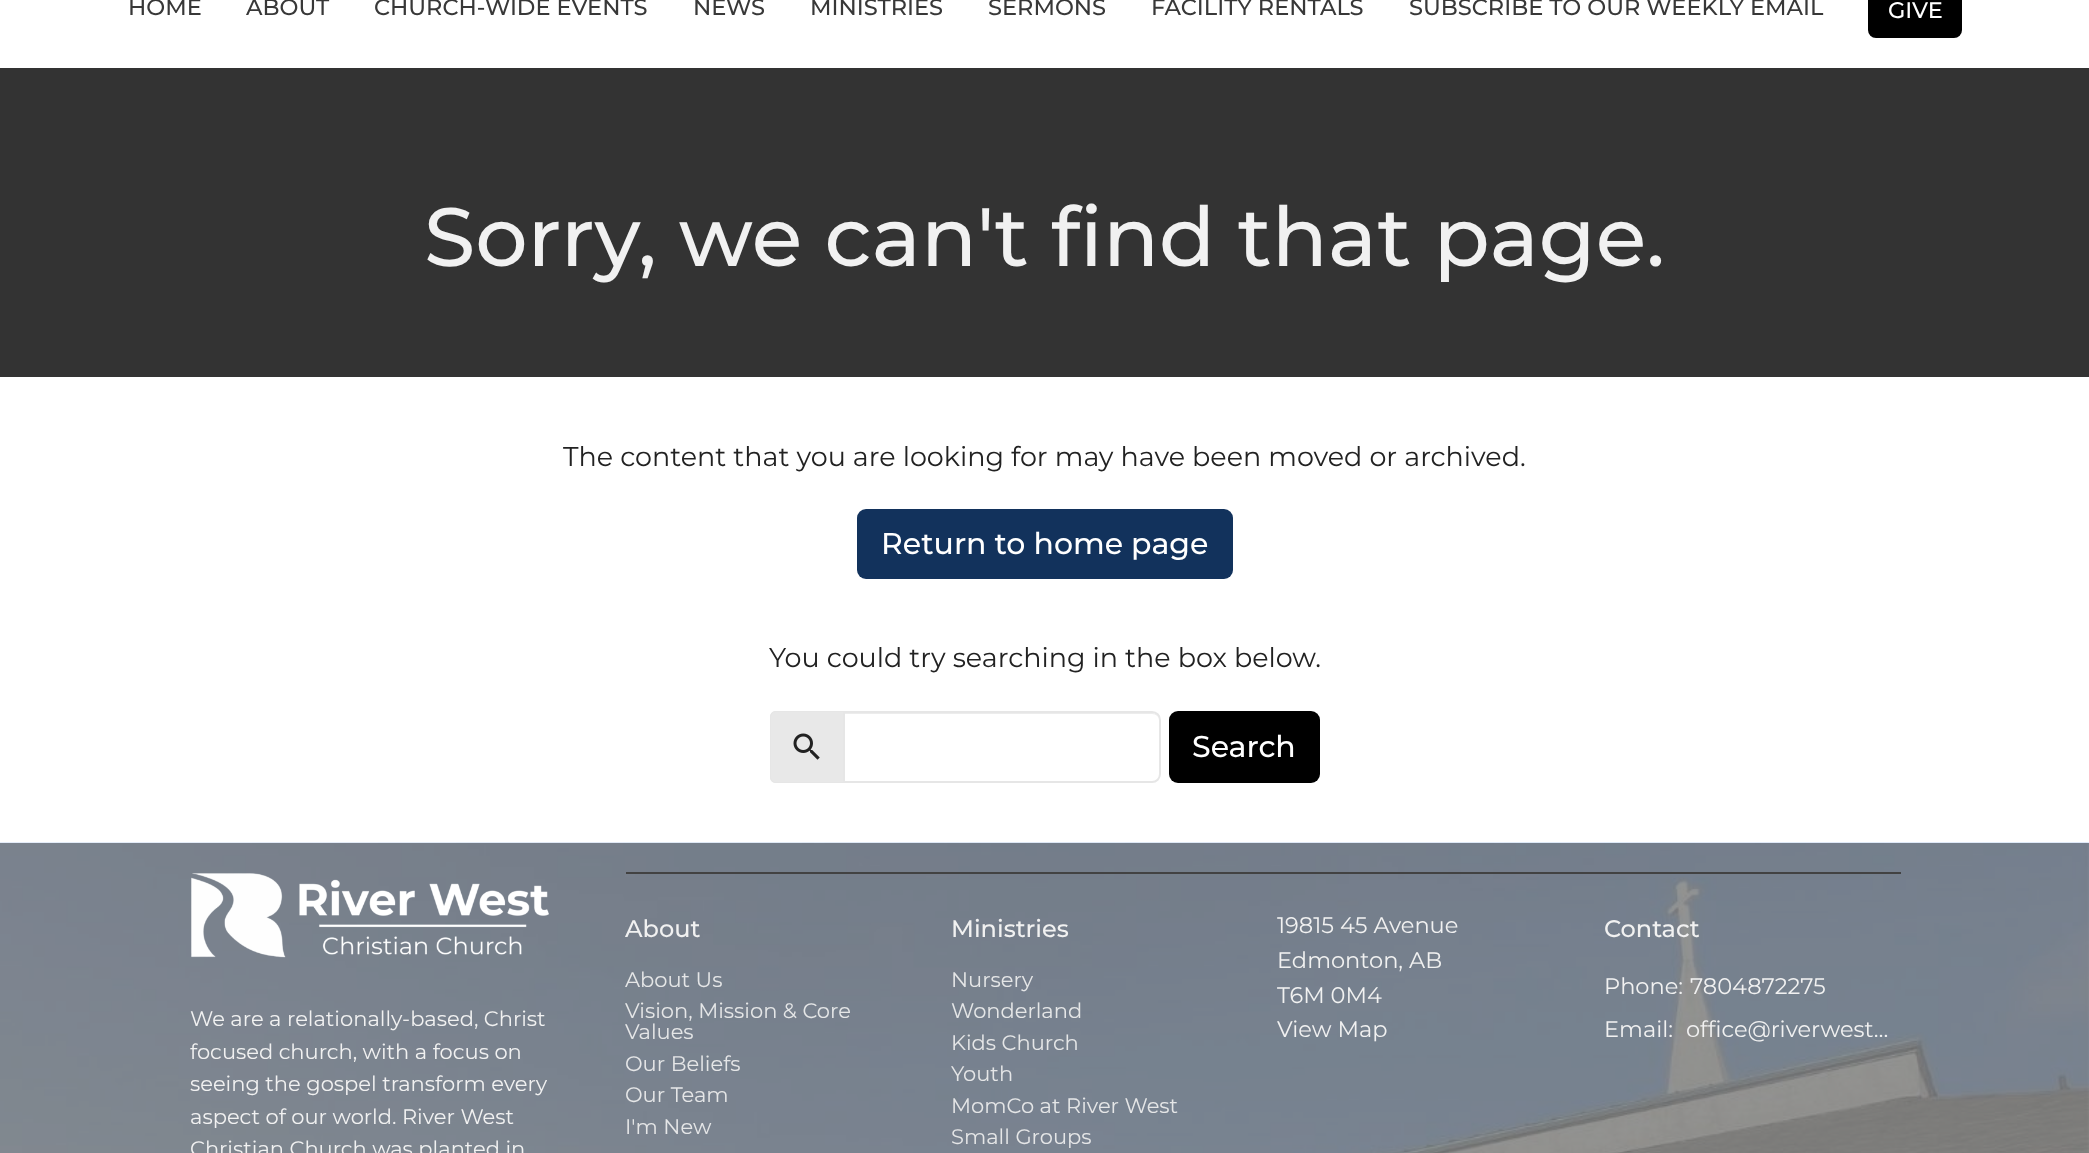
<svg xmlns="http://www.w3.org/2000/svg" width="2089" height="1153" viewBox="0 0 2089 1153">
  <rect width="100%" height="100%" fill="rgb(255,255,255)"/>
  <g font-family="Montserrat" font-size="22.5" font-weight="500" fill="rgb(56,56,56)">
    <text x="128" y="15">HOME</text>
    <text x="246" y="15">ABOUT</text>
    <text x="374" y="15">CHURCH-WIDE EVENTS</text>
    <text x="693" y="15">NEWS</text>
    <text x="810" y="15">MINISTRIES</text>
    <text x="988" y="15">SERMONS</text>
    <text x="1151" y="15">FACILITY RENTALS</text>
    <text x="1409" y="15">SUBSCRIBE TO OUR WEEKLY EMAIL</text>
  </g>
  <rect x="1868" y="-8" width="94" height="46" rx="8" fill="rgb(0,0,0)"/>
  <text x="1888" y="18" font-family="Montserrat" font-size="22.5" font-weight="500" fill="rgb(255,255,255)">GIVE</text>
  <rect x="0" y="68" width="2089" height="309" fill="rgb(51,51,51)"/>
  <text x="424" y="266" font-family="Montserrat" font-size="82.5" font-weight="500" fill="rgb(241,241,241)">Sorry, we can't find that page.</text>
  <text x="563" y="466" font-family="Montserrat" font-size="27" fill="rgb(34,34,34)">The content that you are looking for may have been moved or archived.</text>
  <rect x="857" y="509" width="376" height="70" rx="9" fill="rgb(18,50,92)"/>
  <text x="881" y="554" font-family="Montserrat" font-size="30" font-weight="500" fill="rgb(255,255,255)">Return to home page</text>
  <text x="769" y="667" font-family="Montserrat" font-size="27" fill="rgb(34,34,34)">You could try searching in the box below.</text>
  <path d="M776 711H843V783H776C772.5 783 770 780.5 770 777V717C770 713.5 772.5 711 776 711Z" fill="rgb(232,232,232)"/>
  <path d="M776 711H843V783H776C772 783 770 780 770 777V717C770 714 772 711 776 711ZM776 712H843V782H776C773 782 771 779 771 777V717C771 715 773 712 776 712Z" fill="rgb(230,230,230)" fill-rule="evenodd"/>
  <image x="793" y="733" width="27" height="27" href="pic1.png"/>
  <path d="M845 713V714H1152C1156 714 1160 717 1160 722C1160 717 1157 713 1152 713Z" fill="rgb(236,236,236)"/>
  <path d="M844 712H1152C1156.5 712 1160 715.5 1160 720V774C1160 778.5 1156.5 782 1152 782H844Z" fill="none" stroke="rgb(230,230,230)" stroke-width="2"/>
  <rect x="1169" y="711" width="151" height="72" rx="9" fill="rgb(0,0,0)"/>
  <text x="1192" y="757" font-family="Montserrat" font-size="30" font-weight="500" fill="rgb(255,255,255)">Search</text>
  <image x="0" y="842" width="2089" height="311" href="pic2.png"/>
  <image x="191" y="873" width="358" height="85" href="pic3.png"/>
  <g font-family="Montserrat" font-size="21" fill="rgb(241,241,241)">
    <text>
      <tspan x="190" y="1026">We are a relationally-based, Christ</tspan>
      <tspan x="190" y="1059">focused church, with a focus on</tspan>
      <tspan x="190" y="1091">seeing the gospel transform every</tspan>
      <tspan x="190" y="1124">aspect of our world. River West</tspan>
      <tspan x="190" y="1156">Christian Church was planted in</tspan>
    </text>
  </g>
  <rect x="626" y="872" width="1275" height="2" fill="rgb(66,66,66)"/>
  <text x="625" y="937" font-family="Montserrat" font-size="24" font-weight="500" fill="rgb(241,241,241)">About</text>
  <g font-family="Montserrat" font-size="21" fill="rgb(229,230,231)">
    <text>
      <tspan x="625" y="987">About Us</tspan>
      <tspan x="625" y="1018">Vision, Mission &amp; Core</tspan>
      <tspan x="625" y="1039">Values</tspan>
      <tspan x="625" y="1071">Our Beliefs</tspan>
      <tspan x="625" y="1102">Our Team</tspan>
      <tspan x="625" y="1134">I'm New</tspan>
    </text>
  </g>
  <text x="951" y="937" font-family="Montserrat" font-size="24" font-weight="500" fill="rgb(241,241,241)">Ministries</text>
  <g font-family="Montserrat" font-size="21" fill="rgb(229,230,231)">
    <text>
      <tspan x="951" y="987">Nursery</tspan>
      <tspan x="951" y="1018">Wonderland</tspan>
      <tspan x="951" y="1050">Kids Church</tspan>
      <tspan x="951" y="1081">Youth</tspan>
      <tspan x="951" y="1113">MomCo at River West</tspan>
      <tspan x="951" y="1144">Small Groups</tspan>
    </text>
  </g>
  <g font-family="Montserrat" font-size="22.5" fill="rgb(241,241,241)">
    <text>
      <tspan x="1277" y="933">19815 45 Avenue</tspan>
      <tspan x="1277" y="968">Edmonton, AB</tspan>
      <tspan x="1277" y="1003">T6M 0M4</tspan>
      <tspan x="1277" y="1037">View Map</tspan>
    </text>
  </g>
  <text x="1604" y="937" font-family="Montserrat" font-size="24" font-weight="500" fill="rgb(241,241,241)">Contact</text>
  <g font-family="Montserrat" font-size="22.5" fill="rgb(241,241,241)">
    <text x="1604" y="994">Phone:</text>
    <text x="1690" y="994">7804872275</text>
    <text x="1604" y="1037">Email:</text>
    <text x="1686" y="1037">office@riverwest…</text>
  </g>
</svg>
